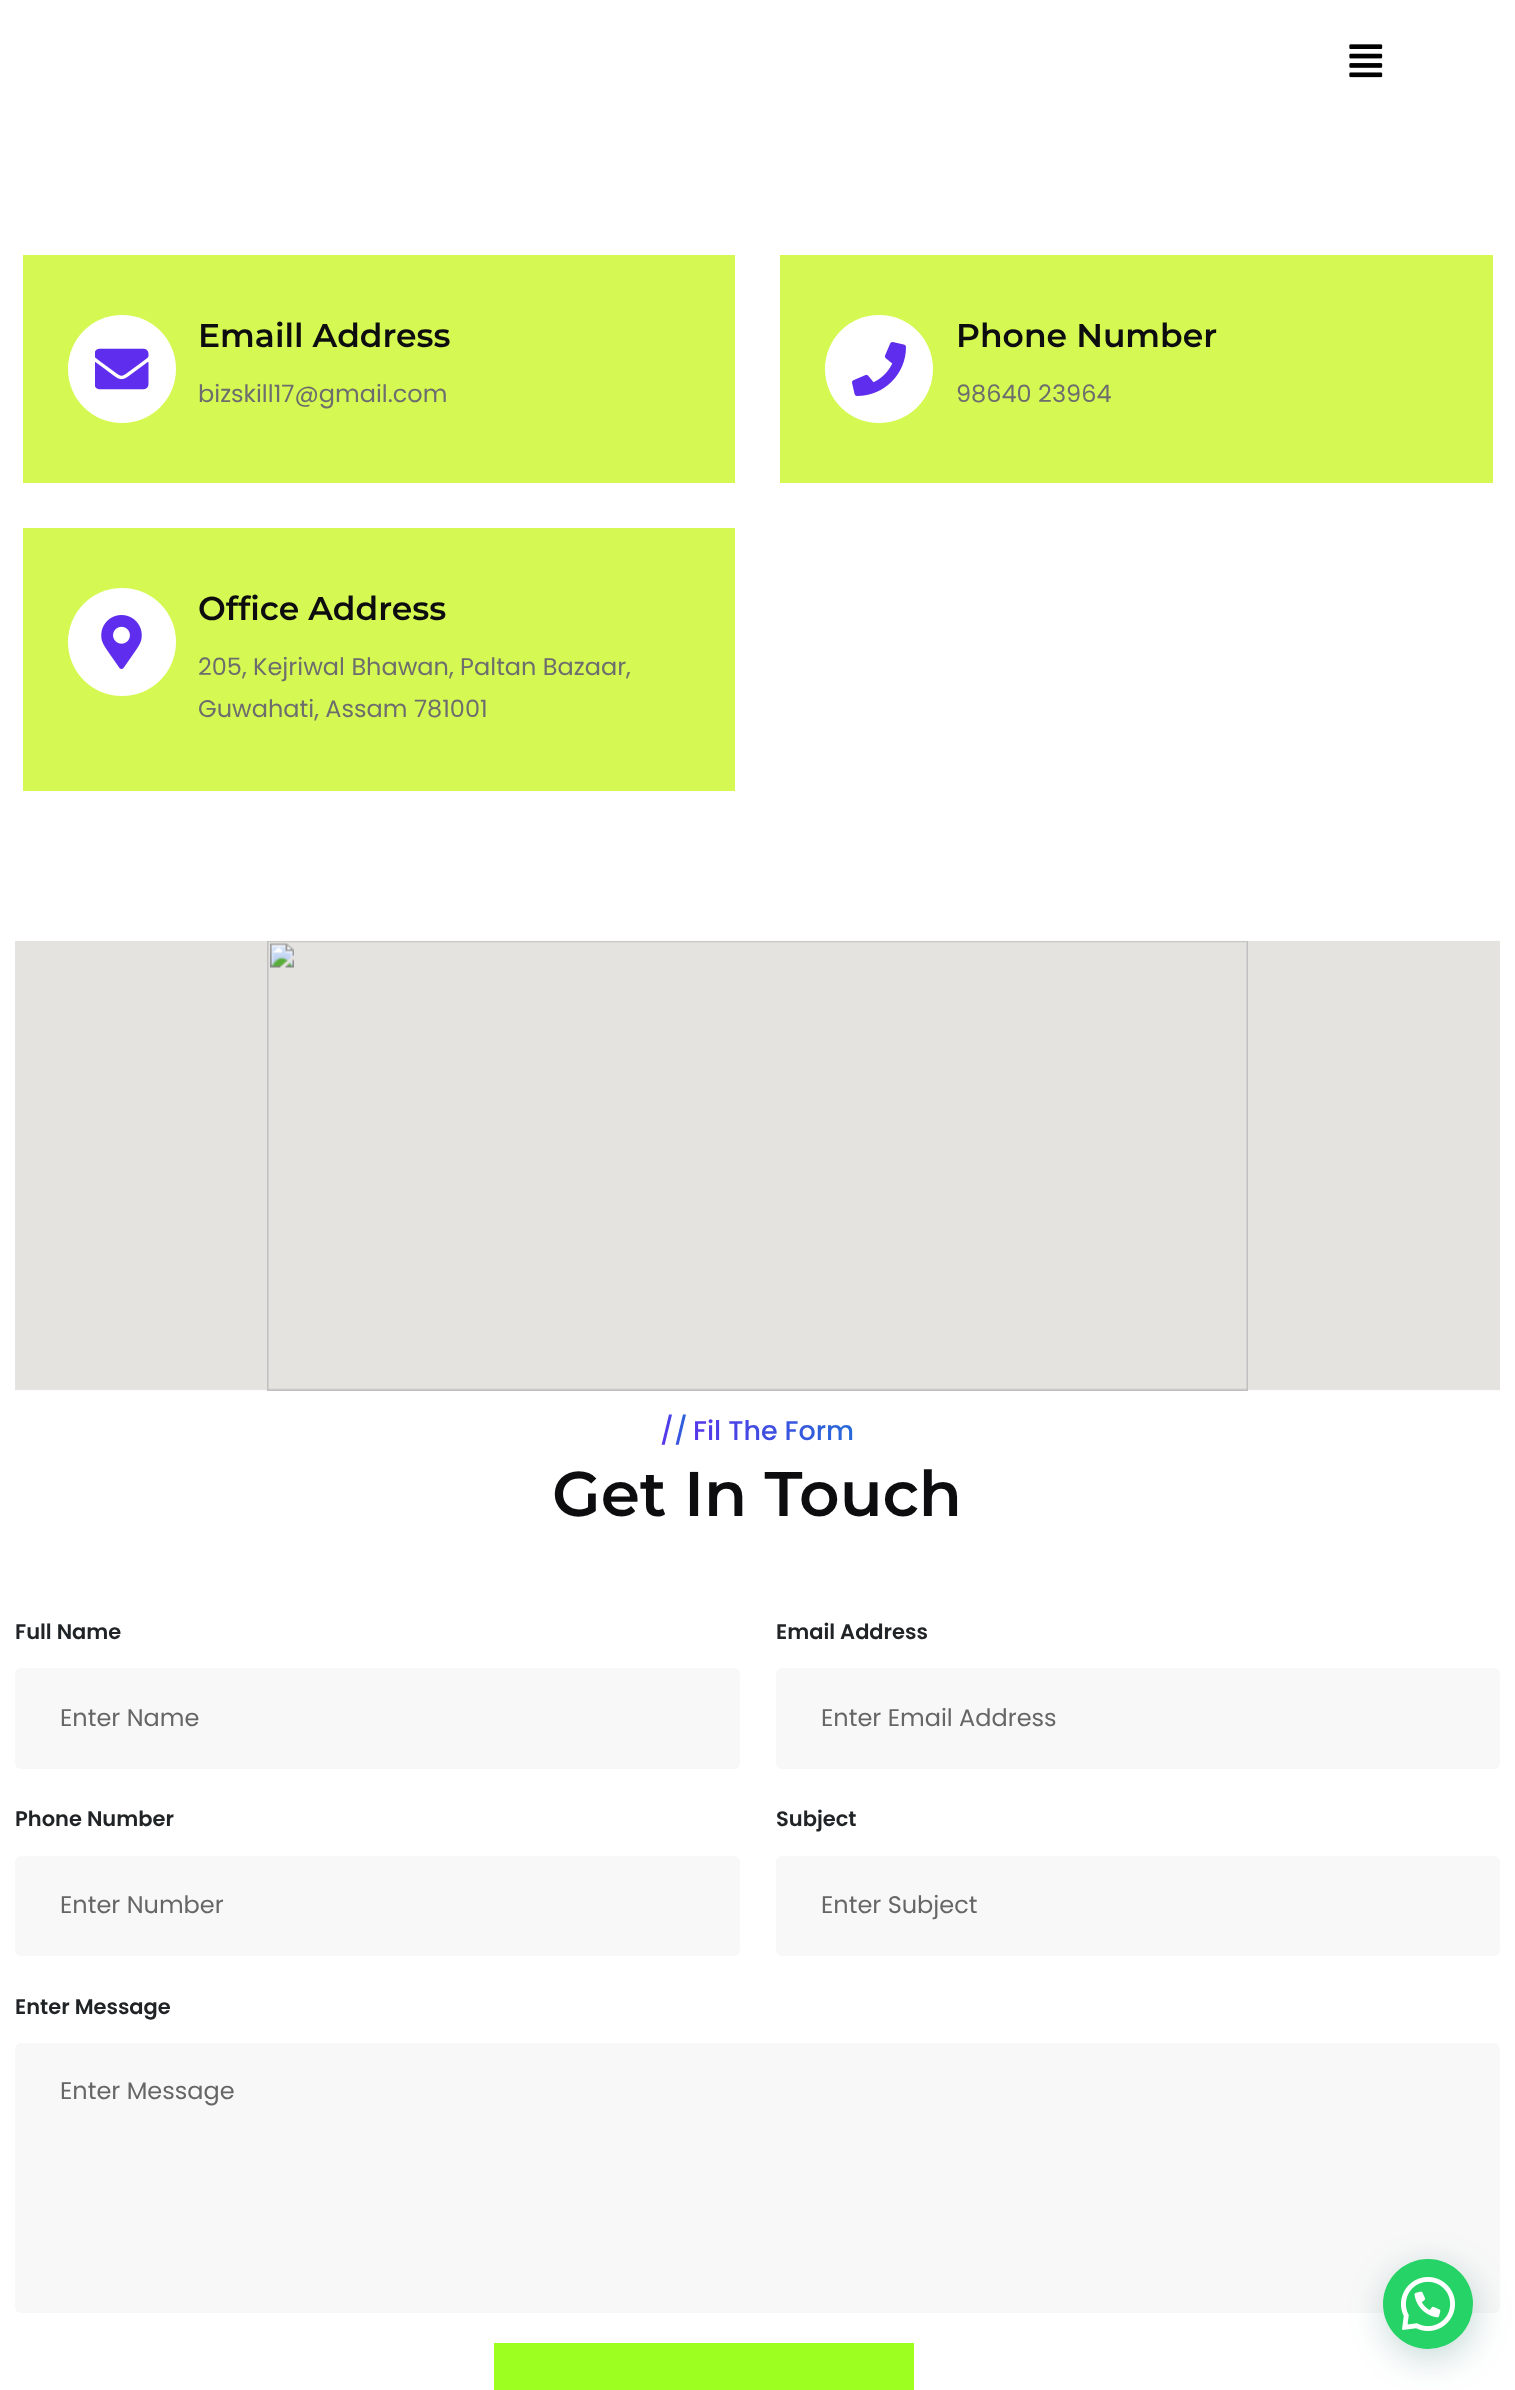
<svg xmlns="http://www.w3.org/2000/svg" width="1515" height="2390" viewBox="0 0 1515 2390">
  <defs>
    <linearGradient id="g1" gradientUnits="userSpaceOnUse" x1="660" y1="1431" x2="688" y2="1431"><stop offset="0" stop-color="rgb(95,45,238)"/><stop offset="1" stop-color="rgb(37,106,215)"/></linearGradient>
    <linearGradient id="g2" gradientUnits="userSpaceOnUse" x1="660" y1="1430" x2="855" y2="1430"><stop offset="0" stop-color="rgb(95,45,238)"/><stop offset="1" stop-color="rgb(37,106,215)"/></linearGradient>
  </defs>
  <rect width="100%" height="100%" fill="rgb(255,255,255)"/>
  <image x="1349" y="44" width="34" height="34" href="pic1.png"/>
  <rect x="23" y="255" width="712" height="228" fill="rgb(213,249,82)"/>
  <circle cx="122" cy="369" r="54" fill="rgb(255,255,255)"/>
  <image x="95" y="348" width="54" height="42" href="pic2.png"/>
  <text x="198" y="347" font-family="Montserrat" font-size="33" font-weight="600" fill="rgb(13,13,15)">Emaill Address</text>
  <text x="198" y="402" font-family="Poppins" font-size="24" fill="rgb(109,109,109)">bizskill17@gmail.com</text>
  <rect x="780" y="255" width="713" height="228" fill="rgb(213,249,82)"/>
  <circle cx="879" cy="369" r="54" fill="rgb(255,255,255)"/>
  <image x="852" y="342" width="54" height="54" href="pic3.png"/>
  <text x="956" y="347" font-family="Montserrat" font-size="33" font-weight="600" fill="rgb(13,13,15)">Phone Number</text>
  <text x="956" y="402" font-family="Poppins" font-size="24" fill="rgb(109,109,109)">98640 23964</text>
  <rect x="23" y="528" width="712" height="263" fill="rgb(213,249,82)"/>
  <circle cx="122" cy="642" r="54" fill="rgb(255,255,255)"/>
  <image x="101" y="615" width="41" height="54" href="pic4.png"/>
  <text x="198" y="620" font-family="Montserrat" font-size="33" font-weight="600" fill="rgb(13,13,15)">Office Address</text>
  <g font-family="Poppins" font-size="24" fill="rgb(109,109,109)">
    <text>
      <tspan x="198" y="675">205, Kejriwal Bhawan, Paltan Bazaar,</tspan>
      <tspan x="198" y="717">Guwahati, Assam 781001</tspan>
    </text>
  </g>
  <image x="15" y="940" width="1485" height="451" href="pic5.png"/>
  <text x="660" y="1440" font-family="Poppins" font-size="27" font-weight="500" fill="url(#g1)">//</text>
  <text x="693" y="1440" font-family="Poppins" font-size="27" font-weight="500" fill="url(#g2)">Fil The Form</text>
  <text x="552" y="1516" font-family="Montserrat" font-size="63" font-weight="600" fill="rgb(13,13,15)">Get In Touch</text>
  <text x="15" y="1639" font-family="Poppins" font-size="21" font-weight="600" fill="rgb(32,36,38)">Full Name</text>
  <rect x="15" y="1668" width="725" height="101" rx="6" fill="rgb(248,248,248)"/>
  <text x="60" y="1726" font-family="Poppins" font-size="24" fill="rgb(102,102,102)">Enter Name</text>
  <text x="776" y="1639" font-family="Poppins" font-size="21" font-weight="600" fill="rgb(32,36,38)">Email Address</text>
  <rect x="776" y="1668" width="724" height="101" rx="6" fill="rgb(248,248,248)"/>
  <text x="821" y="1726" font-family="Poppins" font-size="24" fill="rgb(102,102,102)">Enter Email Address</text>
  <text x="15" y="1826" font-family="Poppins" font-size="21" font-weight="600" fill="rgb(32,36,38)">Phone Number</text>
  <rect x="15" y="1856" width="725" height="100" rx="6" fill="rgb(248,248,248)"/>
  <text x="60" y="1913" font-family="Poppins" font-size="24" fill="rgb(102,102,102)">Enter Number</text>
  <text x="776" y="1826" font-family="Poppins" font-size="21" font-weight="600" fill="rgb(32,36,38)">Subject</text>
  <rect x="776" y="1856" width="724" height="100" rx="6" fill="rgb(248,248,248)"/>
  <text x="821" y="1913" font-family="Poppins" font-size="24" fill="rgb(102,102,102)">Enter Subject</text>
  <text x="15" y="2014" font-family="Poppins" font-size="21" font-weight="600" fill="rgb(32,36,38)">Enter Message</text>
  <rect x="15" y="2043" width="1485" height="270" rx="6" fill="rgb(248,248,248)"/>
  <text x="60" y="2099" font-family="Poppins" font-size="24" fill="rgb(102,102,102)">Enter Message</text>
  <rect x="494" y="2343" width="420" height="47" fill="rgb(157,255,32)"/>
  <rect x="1385" y="2268" width="90" height="90" rx="45" fill="rgba(7,94,84,0.24)" filter="blur(18px)"/>
  <circle cx="1428" cy="2304" r="45" fill="rgb(37,211,102)"/>
  <image x="1401" y="2277" width="54" height="54" href="pic6.png"/>
</svg>
